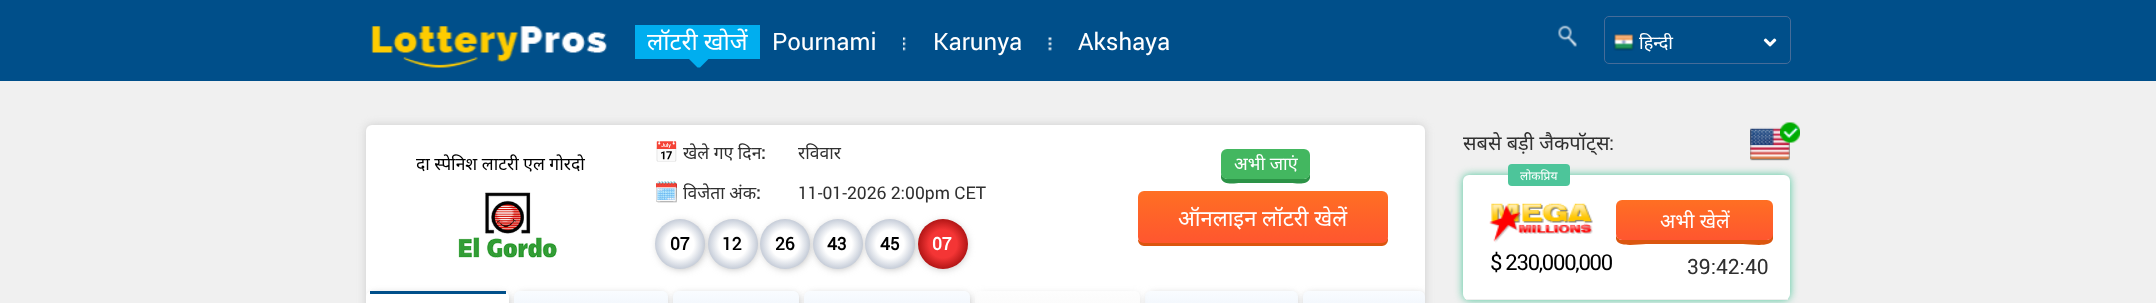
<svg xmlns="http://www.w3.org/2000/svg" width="2156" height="303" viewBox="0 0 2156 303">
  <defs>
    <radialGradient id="g1" gradientUnits="userSpaceOnUse" cx="680" cy="244" r="35"><stop offset="0.4" stop-color="rgb(255,255,255)"/><stop offset="0.9" stop-color="rgb(163,174,193)"/></radialGradient>
    <radialGradient id="g2" gradientUnits="userSpaceOnUse" cx="733" cy="244" r="35"><stop offset="0.4" stop-color="rgb(255,255,255)"/><stop offset="0.9" stop-color="rgb(163,174,193)"/></radialGradient>
    <radialGradient id="g3" gradientUnits="userSpaceOnUse" cx="785" cy="244" r="35"><stop offset="0.4" stop-color="rgb(255,255,255)"/><stop offset="0.9" stop-color="rgb(163,174,193)"/></radialGradient>
    <radialGradient id="g4" gradientUnits="userSpaceOnUse" cx="838" cy="244" r="35"><stop offset="0.4" stop-color="rgb(255,255,255)"/><stop offset="0.9" stop-color="rgb(163,174,193)"/></radialGradient>
    <radialGradient id="g5" gradientUnits="userSpaceOnUse" cx="890" cy="244" r="35"><stop offset="0.4" stop-color="rgb(255,255,255)"/><stop offset="0.9" stop-color="rgb(163,174,193)"/></radialGradient>
    <radialGradient id="g6" gradientUnits="userSpaceOnUse" cx="943" cy="244" r="35"><stop offset="0.4" stop-color="rgb(244,53,53)"/><stop offset="0.9" stop-color="rgb(139,3,3)"/></radialGradient>
    <linearGradient id="g7" gradientUnits="userSpaceOnUse" x1="1263" y1="191" x2="1263" y2="243"><stop offset="0" stop-color="rgb(255,111,35)"/><stop offset="1" stop-color="rgb(255,86,47)"/></linearGradient>
    <clipPath id="clip1"><rect x="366" y="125" width="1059" height="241" rx="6"/></clipPath>
    <linearGradient id="g8" gradientUnits="userSpaceOnUse" x1="591" y1="291" x2="591" y2="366"><stop offset="0" stop-color="rgb(249,252,255)"/><stop offset="1" stop-color="rgb(216,226,243)"/></linearGradient>
    <linearGradient id="g9" gradientUnits="userSpaceOnUse" x1="736" y1="291" x2="736" y2="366"><stop offset="0" stop-color="rgb(249,252,255)"/><stop offset="1" stop-color="rgb(216,226,243)"/></linearGradient>
    <linearGradient id="g10" gradientUnits="userSpaceOnUse" x1="887" y1="291" x2="887" y2="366"><stop offset="0" stop-color="rgb(249,252,255)"/><stop offset="1" stop-color="rgb(216,226,243)"/></linearGradient>
    <linearGradient id="g11" gradientUnits="userSpaceOnUse" x1="1221" y1="291" x2="1221" y2="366"><stop offset="0" stop-color="rgb(249,252,255)"/><stop offset="1" stop-color="rgb(216,226,243)"/></linearGradient>
    <clipPath id="clip2"><path d="M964 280H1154V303H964ZM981 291H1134C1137.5 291 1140 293.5 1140 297V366H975V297C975 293.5 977.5 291 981 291Z" clip-rule="evenodd"/></clipPath>
    <linearGradient id="g12" gradientUnits="userSpaceOnUse" x1="1058" y1="291" x2="1058" y2="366"><stop offset="0" stop-color="rgb(252,252,252)" stop-opacity="0.5"/><stop offset="1" stop-color="rgb(225,225,225)" stop-opacity="0.5"/></linearGradient>
    <linearGradient id="g13" gradientUnits="userSpaceOnUse" x1="1364" y1="291" x2="1364" y2="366"><stop offset="0" stop-color="rgb(249,252,255)"/><stop offset="1" stop-color="rgb(216,226,243)"/></linearGradient>
    <linearGradient id="g14" gradientUnits="userSpaceOnUse" x1="1694" y1="200" x2="1694" y2="240"><stop offset="0" stop-color="rgb(255,111,35)"/><stop offset="1" stop-color="rgb(255,86,47)"/></linearGradient>
  </defs>
  <rect width="100%" height="100%" fill="rgb(240,240,240)"/>
  <rect x="0" y="0" width="2156" height="81" fill="rgb(0,79,138)"/>
  <image x="371" y="26" width="236" height="42" href="pic1.png"/>
  <rect x="635" y="25" width="125" height="34" fill="rgb(0,174,239)"/>
  <text x="647" y="50" font-family="Noto Sans" font-size="24" fill="rgb(255,255,255)">लॉटरी खोजें</text>
  <path d="M687.5 57.5H710L700 67.5H697.5Z" fill="rgb(0,174,239)"/>
  <text x="772" y="50" font-family="Roboto" font-size="24" fill="rgb(255,255,255)">Pournami</text>
  <image x="903" y="37" width="3" height="14" href="pic2.png"/>
  <text x="933" y="50" font-family="Roboto" font-size="24" fill="rgb(255,255,255)">Karunya</text>
  <image x="1048" y="37" width="4" height="14" href="pic3.png"/>
  <text x="1078" y="50" font-family="Roboto" font-size="24" fill="rgb(255,255,255)">Akshaya</text>
  <image x="1558" y="25" width="19" height="22" href="pic4.png"/>
  <rect x="1604.5" y="16.5" width="186" height="47" rx="4.5" fill="none" stroke="rgb(70,108,153)"/>
  <image x="1613" y="33" width="22" height="18" href="pic5.png"/>
  <text x="1639" y="49" font-family="Noto Sans" font-size="18" fill="rgb(255,255,255)">हिन्दी</text>
  <image x="1763" y="38" width="14" height="9" href="pic6.png"/>
  <rect x="366" y="125" width="1059" height="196" rx="6" fill="rgb(204,204,204)" filter="blur(4px)"/>
  <rect x="366" y="125" width="1059" height="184" rx="6" fill="rgb(255,255,255)"/>
  <text x="416" y="170" font-family="Noto Sans" font-size="17.5" fill="rgb(0,0,0)">दा स्पेनिश लाटरी एल गोरदो</text>
  <image x="458" y="192" width="100" height="66" href="pic7.png"/>
  <text x="654" y="159" font-family="Noto Color Emoji" font-size="20" fill="rgb(48,48,48)">📅</text>
  <text x="683" y="159" font-family="Noto Sans" font-size="17.5" fill="rgb(48,48,48)">खेले गए दिन</text>
  <text x="761" y="159" font-family="Roboto" font-size="17.5" font-weight="bold" fill="rgb(48,48,48)">:</text>
  <text x="798" y="159" font-family="Noto Sans" font-size="17.5" fill="rgb(48,48,48)">रविवार</text>
  <text x="654" y="199" font-family="Noto Color Emoji" font-size="20" fill="rgb(48,48,48)">🗓️</text>
  <text x="683" y="199" font-family="Noto Sans" font-size="17.5" fill="rgb(48,48,48)">विजेता अंक</text>
  <text x="756" y="199" font-family="Roboto" font-size="17.5" font-weight="bold" fill="rgb(48,48,48)">:</text>
  <text x="798" y="199" font-family="Roboto" font-size="17.5" fill="rgb(48,48,48)">11-01-2026 2:00pm CET</text>
  <rect x="659" y="223" width="45" height="45" rx="22.5" fill="rgb(170,170,170)" filter="blur(4.5px)"/>
  <circle cx="680" cy="244" r="25" fill="url(#g1)"/>
  <text x="670" y="250" font-family="Roboto" font-size="17.5" font-weight="bold" fill="rgb(0,0,0)">07</text>
  <rect x="711" y="223" width="45" height="45" rx="22.5" fill="rgb(170,170,170)" filter="blur(4.5px)"/>
  <circle cx="733" cy="244" r="25" fill="url(#g2)"/>
  <text x="722" y="250" font-family="Roboto" font-size="17.5" font-weight="bold" fill="rgb(0,0,0)">12</text>
  <rect x="764" y="223" width="45" height="45" rx="22.5" fill="rgb(170,170,170)" filter="blur(4.5px)"/>
  <circle cx="785" cy="244" r="25" fill="url(#g3)"/>
  <text x="775" y="250" font-family="Roboto" font-size="17.5" font-weight="bold" fill="rgb(0,0,0)">26</text>
  <rect x="816" y="223" width="45" height="45" rx="22.5" fill="rgb(170,170,170)" filter="blur(4.5px)"/>
  <circle cx="838" cy="244" r="25" fill="url(#g4)"/>
  <text x="827" y="250" font-family="Roboto" font-size="17.5" font-weight="bold" fill="rgb(0,0,0)">43</text>
  <rect x="869" y="223" width="45" height="45" rx="22.5" fill="rgb(170,170,170)" filter="blur(4.5px)"/>
  <circle cx="890" cy="244" r="25" fill="url(#g5)"/>
  <text x="880" y="250" font-family="Roboto" font-size="17.5" font-weight="bold" fill="rgb(0,0,0)">45</text>
  <rect x="921" y="223" width="45" height="45" rx="22.5" fill="rgb(170,170,170)" filter="blur(4.5px)"/>
  <circle cx="943" cy="244" r="25" fill="url(#g6)"/>
  <text x="932" y="250" font-family="Roboto" font-size="17.5" font-weight="bold" fill="rgb(255,255,255)">07</text>
  <path d="M1221 157V178C1223 186 1236 183 1240 183H1291C1295 183 1308 186 1310 178V172C1310 176 1307 179 1304 179H1228C1224 179 1221 176 1221 172Z" fill="rgb(44,147,71)"/>
  <rect x="1221" y="149" width="89" height="30" rx="6" fill="rgb(67,183,96)"/>
  <text x="1234" y="170" font-family="Noto Sans" font-size="18" fill="rgb(255,255,255)">अभी जाएं</text>
  <path d="M1138 239V240C1138 243 1141 246 1144 246H1382C1385 246 1388 243 1388 240V201V199V236C1388 240 1385 242 1381 242H1144C1141 242 1139 241 1138 239Z" fill="rgb(219,86,15)"/>
  <rect x="1138" y="191" width="250" height="52" rx="6" fill="url(#g7)"/>
  <text x="1178" y="226" font-family="Noto Sans" font-size="22" fill="rgb(255,255,255)">ऑनलाइन लॉटरी खेलें</text>
  <g clip-path="url(#clip1)">
    <rect x="370" y="295" width="138" height="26" rx="4" fill="rgb(170,170,170)" filter="blur(4.5px)"/>
  </g>
  <path d="M372 291H503C506.5 291 509 293.5 509 297V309H372C368.5 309 366 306.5 366 303V297C366 293.5 368.5 291 372 291Z" fill="rgb(255,255,255)"/>
  <rect x="370" y="291" width="136" height="3" fill="rgb(0,79,138)"/>
  <rect x="518" y="295" width="148" height="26" rx="4" fill="rgb(170,170,170)" filter="blur(4.5px)"/>
  <path d="M520 291H662C665.5 291 668 293.5 668 297V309H514V297C514 293.5 516.5 291 520 291Z" fill="url(#g8)"/>
  <rect x="676" y="295" width="122" height="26" rx="4" fill="rgb(170,170,170)" filter="blur(4.5px)"/>
  <path d="M679 291H793C796.5 291 799 293.5 799 297V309H673V297C673 293.5 675.5 291 679 291Z" fill="url(#g9)"/>
  <rect x="808" y="295" width="161" height="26" rx="4" fill="rgb(170,170,170)" filter="blur(4.5px)"/>
  <path d="M810 291H964C967.5 291 970 293.5 970 297V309H804V297C804 293.5 806.5 291 810 291Z" fill="url(#g10)"/>
  <rect x="1149" y="295" width="147" height="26" rx="4" fill="rgb(170,170,170)" filter="blur(4.5px)"/>
  <path d="M1151 291H1292C1295.5 291 1298 293.5 1298 297V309H1145V297C1145 293.5 1147.5 291 1151 291Z" fill="url(#g11)"/>
  <g clip-path="url(#clip2)">
    <rect x="979" y="295" width="160" height="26" rx="4" fill="rgba(170,170,170,0.5)" filter="blur(4.5px)"/>
  </g>
  <path d="M981 291H1134C1137.5 291 1140 293.5 1140 297V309H975V297C975 293.5 977.5 291 981 291Z" fill="url(#g12)"/>
  <g clip-path="url(#clip1)">
    <rect x="1306" y="295" width="118" height="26" rx="4" fill="rgb(170,170,170)" filter="blur(4.5px)"/>
  </g>
  <path d="M1309 291H1419C1422.5 291 1425 293.5 1425 297V303C1425 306.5 1422.5 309 1419 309H1303V297C1303 293.5 1305.5 291 1309 291Z" fill="url(#g13)"/>
  <image x="1750" y="127" width="40" height="34" href="pic9.png"/>
  <image x="1780" y="122" width="20" height="21" href="pic8.png"/>
  <text x="1463" y="150" font-family="Noto Sans" font-size="20" fill="rgb(48,48,48)">सबसे बड़ी जैकपॉट्स</text>
  <text x="1609" y="150" font-family="Roboto" font-size="20" fill="rgb(48,48,48)">:</text>
  <rect x="1463" y="175" width="327" height="125" rx="6" fill="rgb(77,197,154)" filter="blur(4px)"/>
  <rect x="1463" y="175" width="327" height="125" rx="6" fill="rgb(255,255,255)"/>
  <rect x="1466" y="299" width="322" height="1" fill="rgb(238,238,238)"/>
  <rect x="1508" y="164" width="62" height="22" rx="4" fill="rgb(77,197,154)"/>
  <text x="1520" y="180" font-family="Noto Sans" font-size="12" fill="rgb(255,255,255)">लोकप्रिय</text>
  <path d="M1616 208V239C1618 248 1638 244 1646 244H1743C1751 244 1771 248 1773 239V215L1772 208V234C1772 237 1770 240 1766 240H1622C1619 240 1616 237 1616 234Z" fill="rgb(219,86,15)"/>
  <rect x="1616" y="200" width="157" height="40" rx="6" fill="url(#g14)"/>
  <text x="1660" y="228" font-family="Noto Sans" font-size="20" fill="rgb(255,255,255)">अभी खेलें</text>
  <image x="1489" y="203" width="104" height="40" href="pic10.png"/>
  <text x="1490" y="270" font-family="Roboto" font-size="22" letter-spacing="-1.25" fill="rgb(0,0,0)">$ 230,000,000</text>
  <text x="1687" y="274" font-family="Roboto" font-size="21" fill="rgb(48,48,48)">39:42:40</text>
</svg>
